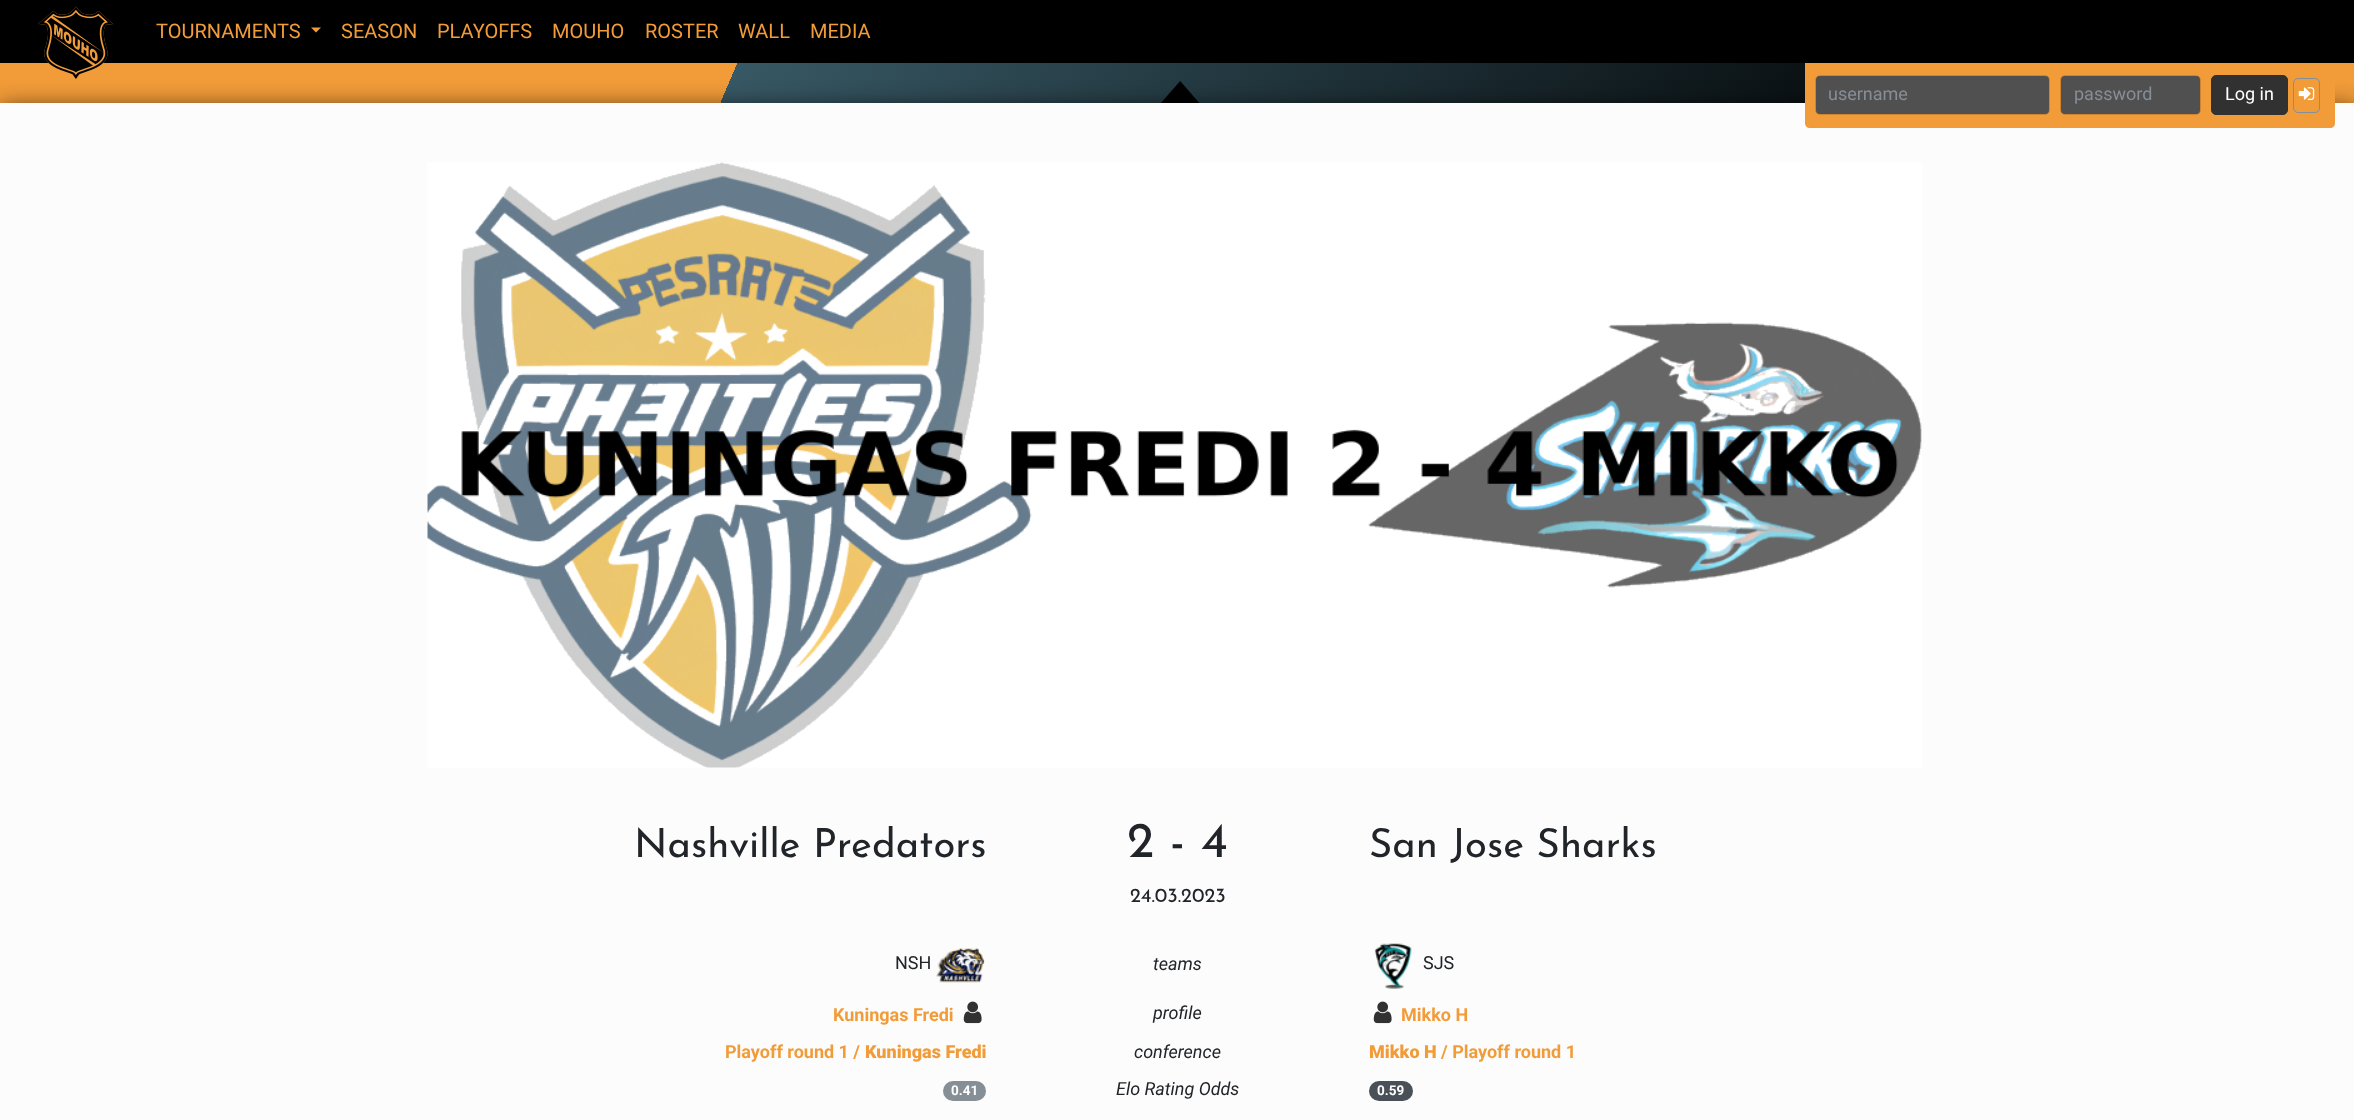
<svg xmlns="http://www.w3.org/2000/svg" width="2354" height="1120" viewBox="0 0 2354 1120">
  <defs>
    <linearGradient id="g1" gradientUnits="userSpaceOnUse" x1="-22" y1="51" x2="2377" y2="1069"><stop offset="0.27" stop-color="rgb(241,155,57)"/><stop offset="0.27" stop-color="rgb(55,88,100)"/><stop offset="0.75" stop-color="rgb(0,0,0)"/><stop offset="0.75" stop-color="rgb(241,155,57)"/></linearGradient>
  </defs>
  <rect width="100%" height="100%" fill="rgb(255,255,255)"/>
  <rect x="0" y="0" width="2354" height="63" fill="rgb(0,0,0)"/>
  <rect x="0" y="63" width="2354" height="40" fill="url(#g1)"/>
  <image x="1161" y="81" width="39" height="22" href="pic3.png"/>
  <rect x="0" y="109" width="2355" height="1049" fill="rgba(0,0,0,0.8)" filter="blur(12.5px)"/>
  <image x="38" y="6" width="75" height="73" href="pic1.png"/>
  <text x="156" y="38" font-family="Roboto" font-size="20" fill="rgb(242,156,57)">TOURNAMENTS</text>
  <path d="M311 27.5H321L316 32.5Z" fill="rgb(242,156,57)"/>
  <g font-family="Roboto" font-size="20" fill="rgb(242,156,57)">
    <text x="341" y="38">SEASON</text>
    <text x="437" y="38">PLAYOFFS</text>
    <text x="552" y="38">MOUHO</text>
    <text x="645" y="38">ROSTER</text>
    <text x="738" y="38">WALL</text>
    <text x="810" y="38">MEDIA</text>
  </g>
  <rect x="0" y="103" width="2354" height="1017" fill="rgb(252,252,252)"/>
  <path d="M1805 63H2335V123C2335 126 2333 128 2330 128H1810C1807 128 1805 126 1805 123Z" fill="rgb(242,156,57)"/>
  <rect x="1816" y="76" width="233" height="38" rx="4" fill="rgb(80,80,80)"/>
  <rect x="1815.5" y="75.5" width="234" height="39" rx="4.5" fill="none" stroke="rgba(0,0,0,0.15)"/>
  <text x="1828" y="100" font-family="Roboto" font-size="18" fill="rgb(134,142,150)">username</text>
  <rect x="2061" y="76" width="139" height="38" rx="4" fill="rgb(80,80,80)"/>
  <rect x="2060.5" y="75.5" width="140" height="39" rx="4.5" fill="none" stroke="rgba(0,0,0,0.15)"/>
  <text x="2074" y="100" font-family="Roboto" font-size="18" fill="rgb(134,142,150)">password</text>
  <rect x="2211.5" y="75.5" width="76" height="39" rx="4.5" fill="rgb(49,49,49)" stroke="rgb(49,49,49)"/>
  <text x="2225" y="100" font-family="Roboto" font-size="18" fill="rgb(255,255,255)">Log in</text>
  <rect x="2293.5" y="78.5" width="26" height="34" rx="4.5" fill="none" stroke="rgb(134,142,150)"/>
  <image x="2298" y="87" width="17" height="13" href="pic2.png"/>
  <image x="427" y="162" width="1495" height="606" href="pic4.png"/>
  <text x="634" y="857" font-family="Josefin Sans" font-size="40" font-weight="100" fill="rgb(33,37,41)">Nashville Predators</text>
  <text x="1127" y="857" font-family="Josefin Sans" font-size="50" font-weight="100" fill="rgb(33,37,41)">2 - 4</text>
  <text x="1130" y="902" font-family="Josefin Sans" font-size="20" font-weight="100" fill="rgb(33,37,41)">24.03.2023</text>
  <text x="1369" y="857" font-family="Josefin Sans" font-size="40" font-weight="100" fill="rgb(33,37,41)">San Jose Sharks</text>
  <text x="895" y="969" font-family="Roboto" font-size="18" fill="rgb(33,37,41)">NSH</text>
  <image x="936" y="947" width="50" height="36" href="pic5.png"/>
  <text x="1153" y="970" font-family="Roboto" font-size="18" font-style="italic" fill="rgb(33,37,41)">teams</text>
  <image x="1374" y="943" width="38" height="46" href="pic6.png"/>
  <text x="1423" y="969" font-family="Roboto" font-size="18" fill="rgb(33,37,41)">SJS</text>
  <text x="833" y="1021" font-family="Roboto" font-size="18" font-weight="bold" fill="rgb(242,156,57)">Kuningas Fredi</text>
  <image x="963" y="1001" width="19" height="23" href="pic7.png"/>
  <text x="1153" y="1019" font-family="Roboto" font-size="18" font-style="italic" fill="rgb(33,37,41)">profile</text>
  <image x="1373" y="1001" width="19" height="23" href="pic7.png"/>
  <g font-family="Roboto" font-size="18" font-weight="bold" fill="rgb(242,156,57)">
    <text x="1401" y="1021">Mikko H</text>
    <text x="725" y="1058">Playoff round 1 /</text>
  </g>
  <text x="865" y="1058" font-family="Roboto" font-size="18" font-weight="900" fill="rgb(242,156,57)">Kuningas Fredi</text>
  <text x="1134" y="1058" font-family="Roboto" font-size="18" font-style="italic" fill="rgb(33,37,41)">conference</text>
  <text x="1369" y="1058" font-family="Roboto" font-size="18" font-weight="900" fill="rgb(242,156,57)">Mikko H</text>
  <text x="1441" y="1058" font-family="Roboto" font-size="18" font-weight="bold" fill="rgb(242,156,57)">/ Playoff round 1</text>
  <rect x="943" y="1081" width="43" height="20" rx="10" fill="rgb(134,142,150)"/>
  <text x="951" y="1095" font-family="Roboto" font-size="13.5" font-weight="bold" fill="rgb(255,255,255)">0.41</text>
  <text x="1116" y="1095" font-family="Roboto" font-size="18" font-style="italic" fill="rgb(33,37,41)">Elo Rating Odds</text>
  <rect x="1369" y="1081" width="44" height="20" rx="10" fill="rgb(73,80,87)"/>
  <text x="1377" y="1095" font-family="Roboto" font-size="13.5" font-weight="bold" fill="rgb(255,255,255)">0.59</text>
</svg>
